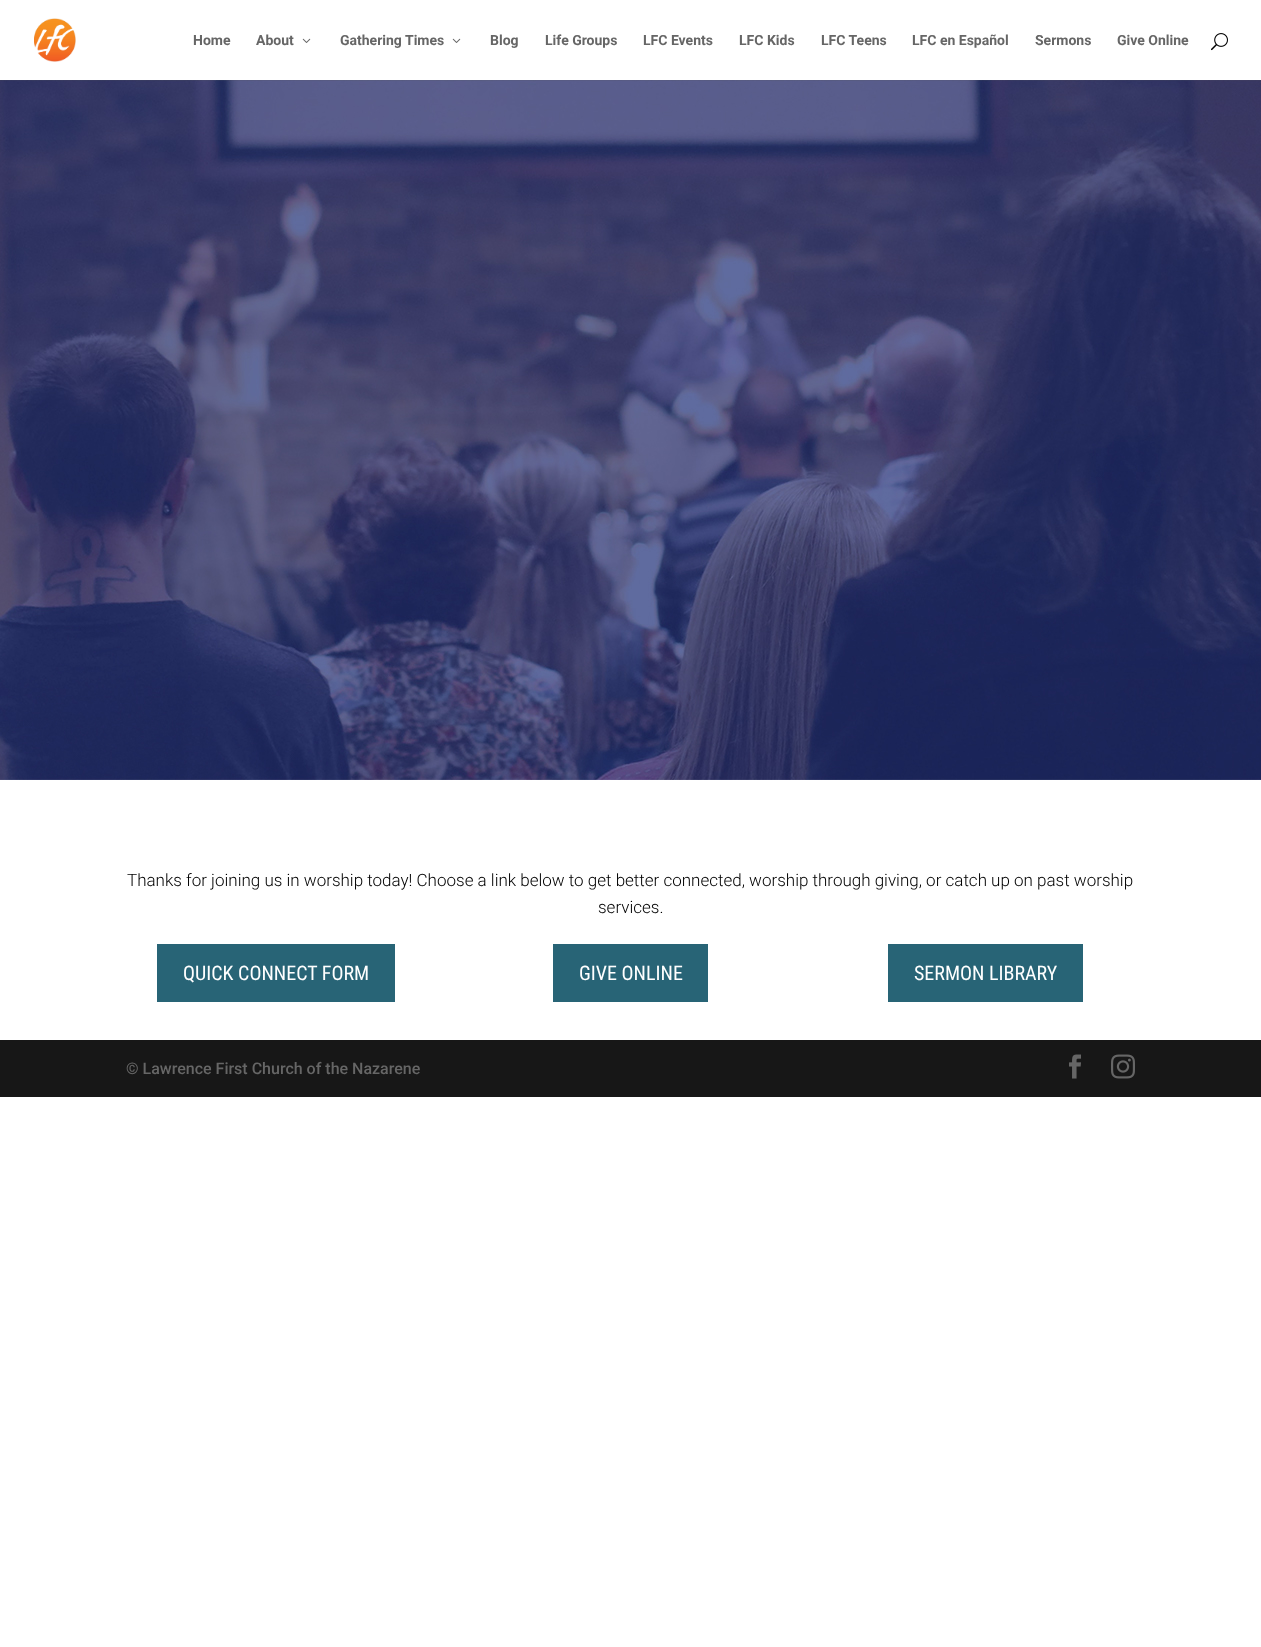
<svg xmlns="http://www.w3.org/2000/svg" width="1261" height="1647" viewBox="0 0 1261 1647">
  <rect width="100%" height="100%" fill="rgb(255,255,255)"/>
  <image x="0" y="80" width="1261" height="700" href="pic4.png"/>
  <rect x="0" y="80" width="1261" height="1" fill="rgba(0,0,0,0.1)"/>
  <image x="34" y="18" width="42" height="44" href="pic1.png"/>
  <g font-family="Roboto" font-size="14" font-weight="bold" fill="rgb(102,102,102)">
    <text x="193" y="45">Home</text>
    <text x="256" y="45">About</text>
  </g>
  <image x="302" y="38" width="9" height="5" href="pic2.png"/>
  <text x="340" y="45" font-family="Roboto" font-size="14" font-weight="bold" fill="rgb(102,102,102)">Gathering Times</text>
  <image x="452" y="38" width="9" height="5" href="pic2.png"/>
  <g font-family="Roboto" font-size="14" font-weight="bold" fill="rgb(102,102,102)">
    <text x="490" y="45">Blog</text>
    <text x="545" y="45">Life Groups</text>
    <text x="643" y="45">LFC Events</text>
    <text x="739" y="45">LFC Kids</text>
    <text x="821" y="45">LFC Teens</text>
    <text x="912" y="45">LFC en Español</text>
    <text x="1035" y="45">Sermons</text>
    <text x="1117" y="45">Give Online</text>
  </g>
  <image x="1211" y="33" width="17" height="18" href="pic3.png"/>
  <g font-family="Roboto" font-size="17" font-weight="300" fill="rgb(0,0,0)">
    <text x="127" y="886">Thanks for joining us in worship today! Choose a link below to get better connected, worship through giving, or catch up on past worship</text>
    <text x="598" y="913">services.</text>
  </g>
  <rect x="160" y="947" width="232" height="52" fill="rgb(40,100,118)" stroke="rgb(40,100,118)" stroke-width="6"/>
  <text x="183" y="980" font-family="Roboto Condensed" font-size="20" fill="rgb(255,255,255)">QUICK CONNECT FORM</text>
  <rect x="556" y="947" width="149" height="52" fill="rgb(40,100,118)" stroke="rgb(40,100,118)" stroke-width="6"/>
  <text x="579" y="980" font-family="Roboto Condensed" font-size="20" fill="rgb(255,255,255)">GIVE ONLINE</text>
  <rect x="891" y="947" width="189" height="52" fill="rgb(40,100,118)" stroke="rgb(40,100,118)" stroke-width="6"/>
  <text x="914" y="980" font-family="Roboto Condensed" font-size="20" fill="rgb(255,255,255)">SERMON LIBRARY</text>
  <rect x="0" y="1040" width="1261" height="57" fill="rgb(23,23,23)"/>
  <text x="126" y="1074" font-family="Roboto" font-size="16" font-weight="500" fill="rgb(102,102,102)">© Lawrence First Church of the Nazarene</text>
  <image x="1069" y="1054" width="12" height="25" href="pic5.png"/>
  <image x="1111" y="1054" width="24" height="25" href="pic6.png"/>
</svg>
